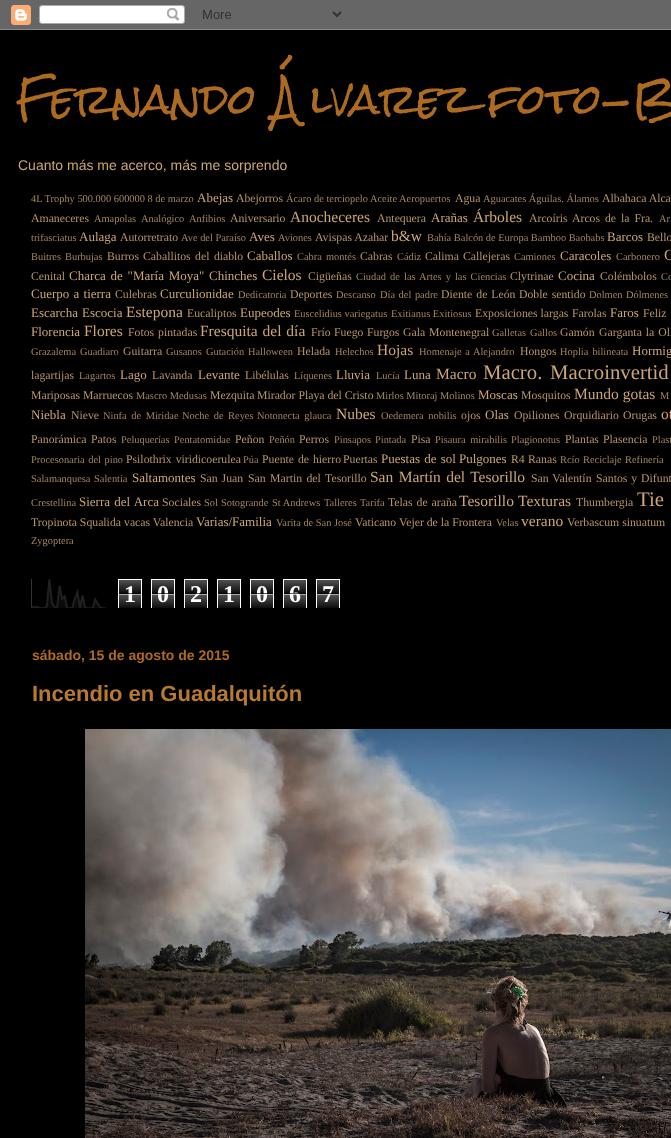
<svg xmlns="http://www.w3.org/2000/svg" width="671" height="1138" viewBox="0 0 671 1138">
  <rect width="100%" height="100%" fill="rgb(0,0,0)"/>
  <image x="0" y="0" width="671" height="30" href="pic1.png"/>
  <text x="16" y="115" font-family="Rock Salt" font-size="40" fill="rgb(172,107,32)">Fernando Álvarez foto-B</text>
  <text x="18" y="170" font-family="Liberation Sans" font-size="14" fill="rgb(206,166,115)">Cuanto más me acerco, más me sorprendo</text>
  <text x="31" y="202" font-family="Liberation Serif" font-size="10.4" fill="rgb(165,133,92)">4L Trophy 500.000 600000 8 de marzo</text>
  <text x="197" y="202" font-family="Liberation Serif" font-size="13" fill="rgb(206,166,115)">Abejas</text>
  <text x="236" y="202" font-family="Liberation Serif" font-size="11.75" fill="rgb(185,149,104)">Abejorros</text>
  <text x="286" y="202" font-family="Liberation Serif" font-size="10.4" fill="rgb(165,133,92)">Ácaro de terciopelo Aceite Aeropuertos</text>
  <text x="455" y="202" font-family="Liberation Serif" font-size="11.75" fill="rgb(185,149,104)">Agua</text>
  <text x="483" y="202" font-family="Liberation Serif" font-size="10.4" fill="rgb(165,133,92)">Aguacates Águilas. Álamos</text>
  <g font-family="Liberation Serif" font-size="11.75" fill="rgb(185,149,104)">
    <text x="602" y="202">Albahaca Alca</text>
    <text x="31" y="222">Amaneceres</text>
  </g>
  <g font-family="Liberation Serif" font-size="10.4" fill="rgb(165,133,92)">
    <text x="94" y="222">Amapolas</text>
    <text x="141" y="222">Analógico</text>
    <text x="189" y="222">Anfibios</text>
  </g>
  <text x="230" y="222" font-family="Liberation Serif" font-size="11.75" fill="rgb(185,149,104)">Aniversario</text>
  <text x="290" y="222" font-family="Liberation Serif" font-size="15.5" fill="rgb(206,166,115)">Anocheceres</text>
  <text x="377" y="222" font-family="Liberation Serif" font-size="11.75" fill="rgb(185,149,104)">Antequera</text>
  <text x="431" y="222" font-family="Liberation Serif" font-size="13" fill="rgb(206,166,115)">Arañas</text>
  <text x="473" y="222" font-family="Liberation Serif" font-size="15.5" fill="rgb(206,166,115)">Árboles</text>
  <g font-family="Liberation Serif" font-size="11.75" fill="rgb(185,149,104)">
    <text x="529" y="222">Arcoíris</text>
    <text x="572" y="222" word-spacing="2">Arcos de la Fra.</text>
  </g>
  <g font-family="Liberation Serif" font-size="10.4" fill="rgb(165,133,92)">
    <text x="659" y="222" word-spacing="2">Ar</text>
    <text x="31" y="241">trifasciatus</text>
  </g>
  <text x="79" y="241" font-family="Liberation Serif" font-size="13" fill="rgb(206,166,115)">Aulaga</text>
  <text x="120" y="241" font-family="Liberation Serif" font-size="11.75" fill="rgb(185,149,104)">Autorretrato</text>
  <text x="181" y="241" font-family="Liberation Serif" font-size="10.4" fill="rgb(165,133,92)">Ave del Paraíso</text>
  <text x="249" y="241" font-family="Liberation Serif" font-size="13" fill="rgb(206,166,115)">Aves</text>
  <text x="278" y="241" font-family="Liberation Serif" font-size="10.4" fill="rgb(165,133,92)">Aviones</text>
  <text x="315" y="241" font-family="Liberation Serif" font-size="11.75" fill="rgb(185,149,104)">Avispas Azahar</text>
  <text x="391" y="241" font-family="Liberation Serif" font-size="15.5" fill="rgb(206,166,115)">b&amp;w</text>
  <text x="427" y="241" font-family="Liberation Serif" font-size="10.4" fill="rgb(165,133,92)">Bahía Balcón de Europa Bamboo Baobabs</text>
  <text x="607" y="241" font-family="Liberation Serif" font-size="13" fill="rgb(206,166,115)">Barcos</text>
  <text x="647" y="241" font-family="Liberation Serif" font-size="11.75" fill="rgb(185,149,104)">Bello</text>
  <g font-family="Liberation Serif" font-size="10.4" fill="rgb(165,133,92)">
    <text x="31" y="260">Buitres</text>
    <text x="65" y="260">Burbujas</text>
  </g>
  <g font-family="Liberation Serif" font-size="11.75" fill="rgb(185,149,104)">
    <text x="107" y="260">Burros</text>
    <text x="143" y="260" word-spacing="1.5">Caballitos del diablo</text>
  </g>
  <text x="247" y="260" font-family="Liberation Serif" font-size="13" fill="rgb(206,166,115)">Caballos</text>
  <text x="297" y="260" word-spacing="1.5" font-family="Liberation Serif" font-size="10.4" fill="rgb(165,133,92)">Cabra montés</text>
  <text x="360" y="260" font-family="Liberation Serif" font-size="11.75" fill="rgb(185,149,104)">Cabras</text>
  <text x="397" y="260" font-family="Liberation Serif" font-size="10.4" fill="rgb(165,133,92)">Cádiz</text>
  <g font-family="Liberation Serif" font-size="11.75" fill="rgb(185,149,104)">
    <text x="425" y="260">Calima</text>
    <text x="463" y="260">Callejeras</text>
  </g>
  <text x="514" y="260" font-family="Liberation Serif" font-size="10.4" fill="rgb(165,133,92)">Camiones</text>
  <text x="560" y="260" font-family="Liberation Serif" font-size="13" fill="rgb(206,166,115)">Caracoles</text>
  <text x="616" y="260" font-family="Liberation Serif" font-size="10.4" fill="rgb(165,133,92)">Carbonero</text>
  <text x="664" y="260" font-family="Liberation Serif" font-size="15.5" fill="rgb(206,166,115)">C</text>
  <text x="31" y="280" font-family="Liberation Serif" font-size="11.75" fill="rgb(185,149,104)">Cenital</text>
  <g font-family="Liberation Serif" font-size="13" fill="rgb(206,166,115)">
    <text x="69" y="280" word-spacing="1.5">Charca de "María Moya"</text>
    <text x="209" y="280">Chinches</text>
  </g>
  <text x="262" y="280" font-family="Liberation Serif" font-size="15.5" fill="rgb(206,166,115)">Cielos</text>
  <text x="308" y="280" font-family="Liberation Serif" font-size="11.75" fill="rgb(185,149,104)">Cigüeñas</text>
  <text x="356" y="280" word-spacing="1.5" font-family="Liberation Serif" font-size="10.4" fill="rgb(165,133,92)">Ciudad de las Artes y las Ciencias</text>
  <text x="510" y="280" font-family="Liberation Serif" font-size="11.75" fill="rgb(185,149,104)">Clytrinae</text>
  <text x="558" y="280" font-family="Liberation Serif" font-size="13" fill="rgb(206,166,115)">Cocina</text>
  <text x="600" y="280" font-family="Liberation Serif" font-size="11.75" fill="rgb(185,149,104)">Colémbolos</text>
  <text x="661" y="280" font-family="Liberation Serif" font-size="10.4" fill="rgb(165,133,92)">Co</text>
  <text x="31" y="298" word-spacing="1" font-family="Liberation Serif" font-size="13" fill="rgb(206,166,115)">Cuerpo a tierra</text>
  <text x="115" y="298" font-family="Liberation Serif" font-size="11.75" fill="rgb(185,149,104)">Culebras</text>
  <text x="160" y="298" font-family="Liberation Serif" font-size="13" fill="rgb(206,166,115)">Curculionidae</text>
  <text x="238" y="298" font-family="Liberation Serif" font-size="10.4" fill="rgb(165,133,92)">Dedicatoria</text>
  <text x="290" y="298" font-family="Liberation Serif" font-size="11.75" fill="rgb(185,149,104)">Deportes</text>
  <g font-family="Liberation Serif" font-size="10.4" fill="rgb(165,133,92)">
    <text x="336" y="298">Descanso</text>
    <text x="380" y="298" word-spacing="1">Día del padre</text>
  </g>
  <g font-family="Liberation Serif" font-size="11.75" fill="rgb(185,149,104)">
    <text x="441" y="298" word-spacing="1">Diente de León</text>
    <text x="519" y="298" word-spacing="1">Doble sentido</text>
  </g>
  <g font-family="Liberation Serif" font-size="10.4" fill="rgb(165,133,92)">
    <text x="589" y="298">Dolmen</text>
    <text x="626" y="298">Dólmenes</text>
  </g>
  <g font-family="Liberation Serif" font-size="13" fill="rgb(206,166,115)">
    <text x="31" y="317">Escarcha</text>
    <text x="82" y="317">Escocia</text>
  </g>
  <text x="126" y="317" font-family="Liberation Serif" font-size="15.5" fill="rgb(206,166,115)">Estepona</text>
  <text x="187" y="317" font-family="Liberation Serif" font-size="11.75" fill="rgb(185,149,104)">Eucaliptos</text>
  <text x="240" y="317" font-family="Liberation Serif" font-size="13" fill="rgb(206,166,115)">Eupeodes</text>
  <g font-family="Liberation Serif" font-size="10.4" fill="rgb(165,133,92)">
    <text x="294" y="317">Euscelidius variegatus</text>
    <text x="391" y="317">Exitianus Exitiosus</text>
  </g>
  <g font-family="Liberation Serif" font-size="11.75" fill="rgb(185,149,104)">
    <text x="475" y="317">Exposiciones largas</text>
    <text x="572" y="317">Farolas</text>
  </g>
  <text x="610" y="317" font-family="Liberation Serif" font-size="13" fill="rgb(206,166,115)">Faros</text>
  <text x="643" y="317" font-family="Liberation Serif" font-size="11.75" fill="rgb(185,149,104)">Feliz</text>
  <text x="31" y="336" font-family="Liberation Serif" font-size="13" fill="rgb(206,166,115)">Florencia</text>
  <text x="84" y="336" font-family="Liberation Serif" font-size="15.5" fill="rgb(206,166,115)">Flores</text>
  <text x="128" y="336" word-spacing="1" font-family="Liberation Serif" font-size="11.75" fill="rgb(185,149,104)">Fotos pintadas</text>
  <text x="200" y="336" word-spacing="1" font-family="Liberation Serif" font-size="15.5" fill="rgb(206,166,115)">Fresquita del día</text>
  <g font-family="Liberation Serif" font-size="11.75" fill="rgb(185,149,104)">
    <text x="311" y="336">Frío</text>
    <text x="334" y="336">Fuego</text>
    <text x="367" y="336">Furgos</text>
    <text x="403" y="336" word-spacing="1">Gala Montenegral</text>
  </g>
  <g font-family="Liberation Serif" font-size="10.4" fill="rgb(165,133,92)">
    <text x="492" y="336">Galletas</text>
    <text x="530" y="336">Gallos</text>
  </g>
  <g font-family="Liberation Serif" font-size="11.75" fill="rgb(185,149,104)">
    <text x="560" y="336">Gamón</text>
    <text x="599" y="336" word-spacing="1">Garganta la Oll</text>
  </g>
  <g font-family="Liberation Serif" font-size="10.4" fill="rgb(165,133,92)">
    <text x="31" y="355">Grazalema</text>
    <text x="80" y="355">Guadiaro</text>
  </g>
  <text x="123" y="355" font-family="Liberation Serif" font-size="11.75" fill="rgb(185,149,104)">Guitarra</text>
  <g font-family="Liberation Serif" font-size="10.4" fill="rgb(165,133,92)">
    <text x="166" y="355">Gusanos</text>
    <text x="206" y="355">Gutación</text>
    <text x="248" y="355">Halloween</text>
  </g>
  <text x="297" y="355" font-family="Liberation Serif" font-size="11.75" fill="rgb(185,149,104)">Helada</text>
  <text x="335" y="355" font-family="Liberation Serif" font-size="10.4" fill="rgb(165,133,92)">Helechos</text>
  <text x="377" y="355" font-family="Liberation Serif" font-size="15.5" fill="rgb(206,166,115)">Hojas</text>
  <text x="419" y="355" word-spacing="1" font-family="Liberation Serif" font-size="10.4" fill="rgb(165,133,92)">Homenaje a Alejandro</text>
  <text x="520" y="355" font-family="Liberation Serif" font-size="11.75" fill="rgb(185,149,104)">Hongos</text>
  <text x="560" y="355" word-spacing="1.5" font-family="Liberation Serif" font-size="10.4" fill="rgb(165,133,92)">Hoplia bilineata</text>
  <text x="632" y="355" font-family="Liberation Serif" font-size="13" fill="rgb(206,166,115)">Hormig</text>
  <text x="31" y="379" font-family="Liberation Serif" font-size="11.75" fill="rgb(185,149,104)">lagartijas</text>
  <text x="79" y="379" font-family="Liberation Serif" font-size="10.4" fill="rgb(165,133,92)">Lagartos</text>
  <text x="120" y="379" font-family="Liberation Serif" font-size="13" fill="rgb(206,166,115)">Lago</text>
  <text x="152" y="379" font-family="Liberation Serif" font-size="11.75" fill="rgb(185,149,104)">Lavanda</text>
  <text x="198" y="379" font-family="Liberation Serif" font-size="13" fill="rgb(206,166,115)">Levante</text>
  <text x="245" y="379" font-family="Liberation Serif" font-size="11.75" fill="rgb(185,149,104)">Libélulas</text>
  <text x="294" y="379" font-family="Liberation Serif" font-size="10.4" fill="rgb(165,133,92)">Líquenes</text>
  <text x="336" y="379" font-family="Liberation Serif" font-size="13" fill="rgb(206,166,115)">Lluvia</text>
  <text x="376" y="379" font-family="Liberation Serif" font-size="10.4" fill="rgb(165,133,92)">Lucía</text>
  <text x="404" y="379" font-family="Liberation Serif" font-size="13" fill="rgb(206,166,115)">Luna</text>
  <text x="436" y="379" font-family="Liberation Serif" font-size="15.5" fill="rgb(206,166,115)">Macro</text>
  <g font-family="Liberation Serif" font-size="20.75" fill="rgb(206,166,115)">
    <text x="483" y="379">Macro.</text>
    <text x="550" y="379">Macroinvertid</text>
  </g>
  <text x="31" y="399" font-family="Liberation Serif" font-size="11.75" fill="rgb(185,149,104)">Mariposas Marruecos</text>
  <text x="136" y="399" font-family="Liberation Serif" font-size="10.4" fill="rgb(165,133,92)">Mascro Medusas</text>
  <g font-family="Liberation Serif" font-size="11.75" fill="rgb(185,149,104)">
    <text x="210" y="399">Mezquita</text>
    <text x="257" y="399">Mirador Playa del Cristo</text>
  </g>
  <text x="376" y="399" font-family="Liberation Serif" font-size="10.4" fill="rgb(165,133,92)">Mirlos Mitoraj Molinos</text>
  <text x="478" y="399" font-family="Liberation Serif" font-size="13" fill="rgb(206,166,115)">Moscas</text>
  <text x="521" y="399" font-family="Liberation Serif" font-size="11.75" fill="rgb(185,149,104)">Mosquitos</text>
  <text x="574" y="399" font-family="Liberation Serif" font-size="15.5" fill="rgb(206,166,115)">Mundo gotas</text>
  <text x="660" y="399" font-family="Liberation Serif" font-size="10.4" fill="rgb(165,133,92)">M</text>
  <text x="31" y="419" font-family="Liberation Serif" font-size="13" fill="rgb(206,166,115)">Niebla</text>
  <text x="71" y="419" font-family="Liberation Serif" font-size="11.75" fill="rgb(185,149,104)">Nieve</text>
  <g font-family="Liberation Serif" font-size="10.4" fill="rgb(165,133,92)">
    <text x="103" y="419" word-spacing="2">Ninfa de Miridae</text>
    <text x="182" y="419" word-spacing="2">Noche de Reyes</text>
    <text x="257" y="419" word-spacing="2">Notonecta glauca</text>
  </g>
  <text x="336" y="419" font-family="Liberation Serif" font-size="15.5" fill="rgb(206,166,115)">Nubes</text>
  <text x="381" y="419" word-spacing="2" font-family="Liberation Serif" font-size="10.4" fill="rgb(165,133,92)">Oedemera nobilis</text>
  <text x="461" y="419" font-family="Liberation Serif" font-size="11.75" fill="rgb(185,149,104)">ojos</text>
  <text x="485" y="419" font-family="Liberation Serif" font-size="13" fill="rgb(206,166,115)">Olas</text>
  <g font-family="Liberation Serif" font-size="11.75" fill="rgb(185,149,104)">
    <text x="514" y="419">Opiliones</text>
    <text x="564" y="419">Orquidiario</text>
    <text x="623" y="419">Orugas</text>
  </g>
  <text x="661" y="419" font-family="Liberation Serif" font-size="15.5" fill="rgb(206,166,115)">ot</text>
  <g font-family="Liberation Serif" font-size="11.75" fill="rgb(185,149,104)">
    <text x="31" y="443">Panorámica</text>
    <text x="91" y="443">Patos</text>
  </g>
  <g font-family="Liberation Serif" font-size="10.4" fill="rgb(165,133,92)">
    <text x="121" y="443">Peluquerías</text>
    <text x="174" y="443">Pentatomidae</text>
  </g>
  <text x="235" y="443" font-family="Liberation Serif" font-size="11.75" fill="rgb(185,149,104)">Peñon</text>
  <text x="269" y="443" font-family="Liberation Serif" font-size="10.4" fill="rgb(165,133,92)">Peñón</text>
  <text x="299" y="443" font-family="Liberation Serif" font-size="11.75" fill="rgb(185,149,104)">Perros</text>
  <g font-family="Liberation Serif" font-size="10.4" fill="rgb(165,133,92)">
    <text x="334" y="443">Pinsapos</text>
    <text x="375" y="443">Pintada</text>
  </g>
  <text x="411" y="443" font-family="Liberation Serif" font-size="11.75" fill="rgb(185,149,104)">Pisa</text>
  <g font-family="Liberation Serif" font-size="10.4" fill="rgb(165,133,92)">
    <text x="435" y="443" word-spacing="2">Pisaura mirabilis</text>
    <text x="511" y="443">Plagionotus</text>
  </g>
  <g font-family="Liberation Serif" font-size="11.75" fill="rgb(185,149,104)">
    <text x="565" y="443">Plantas</text>
    <text x="603" y="443">Plasencia</text>
  </g>
  <g font-family="Liberation Serif" font-size="10.4" fill="rgb(165,133,92)">
    <text x="652" y="443">Plast</text>
    <text x="31" y="463" word-spacing="1">Procesonaria del pino</text>
  </g>
  <text x="126" y="463" word-spacing="1" font-family="Liberation Serif" font-size="11.75" fill="rgb(185,149,104)">Psilothrix viridicoerulea</text>
  <text x="243" y="463" font-family="Liberation Serif" font-size="10.4" fill="rgb(165,133,92)">Púa</text>
  <g font-family="Liberation Serif" font-size="11.75" fill="rgb(185,149,104)">
    <text x="262" y="463" word-spacing="1">Puente de hierro</text>
    <text x="343" y="463">Puertas</text>
  </g>
  <g font-family="Liberation Serif" font-size="13" fill="rgb(206,166,115)">
    <text x="381" y="463" word-spacing="1">Puestas de sol</text>
    <text x="459" y="463">Pulgones</text>
  </g>
  <g font-family="Liberation Serif" font-size="11.75" fill="rgb(185,149,104)">
    <text x="511" y="463">R4</text>
    <text x="528" y="463">Ranas</text>
  </g>
  <g font-family="Liberation Serif" font-size="10.4" fill="rgb(165,133,92)">
    <text x="560" y="463">Rcío</text>
    <text x="583" y="463">Reciclaje</text>
    <text x="625" y="463">Refinería</text>
    <text x="31" y="482">Salamanquesa</text>
    <text x="94" y="482">Salentia</text>
  </g>
  <text x="132" y="482" font-family="Liberation Serif" font-size="13" fill="rgb(206,166,115)">Saltamontes</text>
  <g font-family="Liberation Serif" font-size="11.75" fill="rgb(185,149,104)">
    <text x="200" y="482" word-spacing="1">San Juan</text>
    <text x="248" y="482" word-spacing="1.5">San Martin del Tesorillo</text>
  </g>
  <text x="370" y="482" word-spacing="1.5" font-family="Liberation Serif" font-size="15.5" fill="rgb(206,166,115)">San Martín del Tesorillo</text>
  <g font-family="Liberation Serif" font-size="11.75" fill="rgb(185,149,104)">
    <text x="531" y="482" word-spacing="1">San Valentín</text>
    <text x="596" y="482" word-spacing="1">Santos y Difunt</text>
  </g>
  <text x="31" y="506" font-family="Liberation Serif" font-size="10.4" fill="rgb(165,133,92)">Crestellina</text>
  <text x="79" y="506" word-spacing="1" font-family="Liberation Serif" font-size="13" fill="rgb(206,166,115)">Sierra del Arca</text>
  <text x="162" y="506" font-family="Liberation Serif" font-size="11.75" fill="rgb(185,149,104)">Sociales</text>
  <g font-family="Liberation Serif" font-size="10.4" fill="rgb(165,133,92)">
    <text x="204" y="506">Sol</text>
    <text x="221" y="506">Sotogrande</text>
    <text x="272" y="506">St Andrews</text>
    <text x="324" y="506">Talleres</text>
    <text x="360" y="506">Tarifa</text>
  </g>
  <text x="388" y="506" word-spacing="1" font-family="Liberation Serif" font-size="11.75" fill="rgb(185,149,104)">Telas de araña</text>
  <g font-family="Liberation Serif" font-size="15.5" fill="rgb(206,166,115)">
    <text x="459" y="506">Tesorillo</text>
    <text x="518" y="506">Texturas</text>
  </g>
  <text x="576" y="506" font-family="Liberation Serif" font-size="11.75" fill="rgb(185,149,104)">Thumbergia</text>
  <text x="637" y="506" word-spacing="1" font-family="Liberation Serif" font-size="20.75" fill="rgb(206,166,115)">Tie</text>
  <g font-family="Liberation Serif" font-size="11.75" fill="rgb(185,149,104)">
    <text x="31" y="526">Tropinota Squalida</text>
    <text x="124" y="526">vacas Valencia</text>
  </g>
  <text x="196" y="526" font-family="Liberation Serif" font-size="13" fill="rgb(206,166,115)">Varias/Familia</text>
  <text x="276" y="526" font-family="Liberation Serif" font-size="10.4" fill="rgb(165,133,92)">Varita de San José</text>
  <g font-family="Liberation Serif" font-size="11.75" fill="rgb(185,149,104)">
    <text x="355" y="526">Vaticano</text>
    <text x="399" y="526">Vejer de la Frontera</text>
  </g>
  <text x="496" y="526" font-family="Liberation Serif" font-size="10.4" fill="rgb(165,133,92)">Velas</text>
  <text x="521" y="526" font-family="Liberation Serif" font-size="15.5" fill="rgb(206,166,115)">verano</text>
  <text x="567" y="526" font-family="Liberation Serif" font-size="11.75" fill="rgb(185,149,104)">Verbascum sinuatum</text>
  <text x="31" y="544" font-family="Liberation Serif" font-size="10.4" fill="rgb(165,133,92)">Zygoptera</text>
  <image x="31" y="579" width="75" height="29" href="pic2.png"/>
  <image x="119" y="580" width="22" height="28" href="pic3.png"/>
  <rect x="118.5" y="579.5" width="23" height="29" fill="none" stroke="rgb(255,255,255)"/>
  <text x="124" y="602" font-family="Liberation Serif" font-size="24" font-weight="bold" fill="rgb(255,255,255)">1</text>
  <rect x="119" y="593" width="22" height="1" fill="rgba(0,0,0,0.65)"/>
  <rect x="119" y="594" width="22" height="1" fill="rgba(255,255,255,0.65)"/>
  <image x="152" y="580" width="22" height="28" href="pic3.png"/>
  <rect x="151.5" y="579.5" width="23" height="29" fill="none" stroke="rgb(255,255,255)"/>
  <text x="157" y="602" font-family="Liberation Serif" font-size="24" font-weight="bold" fill="rgb(255,255,255)">0</text>
  <rect x="152" y="593" width="22" height="1" fill="rgba(0,0,0,0.65)"/>
  <rect x="152" y="594" width="22" height="1" fill="rgba(255,255,255,0.65)"/>
  <image x="185" y="580" width="22" height="28" href="pic3.png"/>
  <rect x="184.5" y="579.5" width="23" height="29" fill="none" stroke="rgb(255,255,255)"/>
  <text x="190" y="602" font-family="Liberation Serif" font-size="24" font-weight="bold" fill="rgb(255,255,255)">2</text>
  <rect x="185" y="593" width="22" height="1" fill="rgba(0,0,0,0.65)"/>
  <rect x="185" y="594" width="22" height="1" fill="rgba(255,255,255,0.65)"/>
  <image x="218" y="580" width="22" height="28" href="pic3.png"/>
  <rect x="217.5" y="579.5" width="23" height="29" fill="none" stroke="rgb(255,255,255)"/>
  <text x="223" y="602" font-family="Liberation Serif" font-size="24" font-weight="bold" fill="rgb(255,255,255)">1</text>
  <rect x="218" y="593" width="22" height="1" fill="rgba(0,0,0,0.65)"/>
  <rect x="218" y="594" width="22" height="1" fill="rgba(255,255,255,0.65)"/>
  <image x="251" y="580" width="22" height="28" href="pic3.png"/>
  <rect x="250.5" y="579.5" width="23" height="29" fill="none" stroke="rgb(255,255,255)"/>
  <text x="256" y="602" font-family="Liberation Serif" font-size="24" font-weight="bold" fill="rgb(255,255,255)">0</text>
  <rect x="251" y="593" width="22" height="1" fill="rgba(0,0,0,0.65)"/>
  <rect x="251" y="594" width="22" height="1" fill="rgba(255,255,255,0.65)"/>
  <image x="284" y="580" width="22" height="28" href="pic3.png"/>
  <rect x="283.5" y="579.5" width="23" height="29" fill="none" stroke="rgb(255,255,255)"/>
  <text x="289" y="602" font-family="Liberation Serif" font-size="24" font-weight="bold" fill="rgb(255,255,255)">6</text>
  <rect x="284" y="593" width="22" height="1" fill="rgba(0,0,0,0.65)"/>
  <rect x="284" y="594" width="22" height="1" fill="rgba(255,255,255,0.65)"/>
  <image x="317" y="580" width="22" height="28" href="pic3.png"/>
  <rect x="316.5" y="579.5" width="23" height="29" fill="none" stroke="rgb(255,255,255)"/>
  <text x="322" y="602" font-family="Liberation Serif" font-size="24" font-weight="bold" fill="rgb(255,255,255)">7</text>
  <rect x="317" y="593" width="22" height="1" fill="rgba(0,0,0,0.65)"/>
  <rect x="317" y="594" width="22" height="1" fill="rgba(255,255,255,0.65)"/>
  <rect x="118" y="608" width="222" height="1" fill="rgb(0,0,0)"/>
  <text x="32" y="660" font-family="Liberation Sans" font-size="14" font-weight="bold" fill="rgb(172,107,32)">sábado, 15 de agosto de 2015</text>
  <text x="32" y="701" font-family="Arimo" font-size="22" font-weight="bold" fill="rgb(184,122,46)">Incendio en Guadalquitón</text>
  <image x="85" y="729" width="586" height="409" href="pic4.png"/>
</svg>
